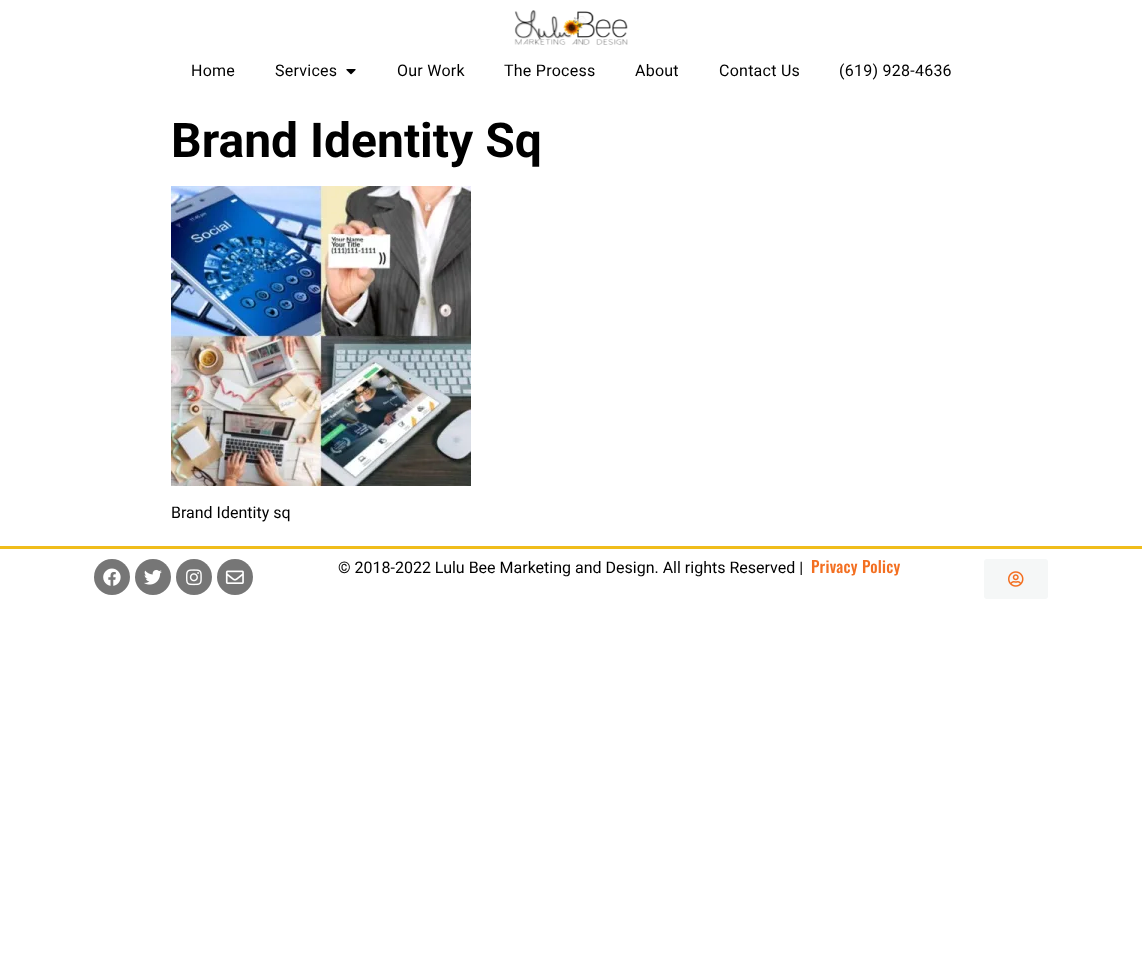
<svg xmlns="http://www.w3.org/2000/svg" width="1142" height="970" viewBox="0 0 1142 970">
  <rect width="100%" height="100%" fill="rgb(255,255,255)"/>
  <image x="514" y="10" width="114" height="35" href="pic1.png"/>
  <g font-family="Roboto" font-size="16" letter-spacing="0.25" fill="rgb(0,0,0)">
    <text x="191" y="76">Home</text>
    <text x="275" y="76">Services</text>
  </g>
  <image x="346" y="69" width="10" height="6" href="pic2.png"/>
  <g font-family="Roboto" font-size="16" letter-spacing="0.25" fill="rgb(0,0,0)">
    <text x="397" y="76">Our Work</text>
    <text x="504" y="76">The Process</text>
    <text x="635" y="76">About</text>
    <text x="719" y="76">Contact Us</text>
    <text x="839" y="76">(619) 928-4636</text>
  </g>
  <text x="171" y="157" font-family="Roboto" font-size="48" font-weight="bold" fill="rgb(0,0,0)">Brand Identity Sq</text>
  <image x="171" y="186" width="300" height="300" href="pic3.png"/>
  <text x="171" y="518" font-family="Roboto" font-size="16" fill="rgb(0,0,0)">Brand Identity sq</text>
  <rect x="0" y="546" width="1142" height="3" fill="rgb(240,189,27)"/>
  <circle cx="112" cy="577" r="18" fill="rgb(118,118,118)"/>
  <image x="103" y="568" width="18" height="18" href="pic4.png"/>
  <circle cx="153" cy="577" r="18" fill="rgb(118,118,118)"/>
  <image x="144" y="569" width="18" height="16" href="pic5.png"/>
  <circle cx="194" cy="577" r="18" fill="rgb(118,118,118)"/>
  <image x="186" y="569" width="16" height="17" href="pic6.png"/>
  <circle cx="235" cy="577" r="18" fill="rgb(118,118,118)"/>
  <image x="225" y="570" width="19" height="14" href="pic7.png"/>
  <text x="338" y="573" font-family="Roboto" font-size="16" fill="rgb(0,0,0)">© 2018-2022 Lulu Bee Marketing and Design. All rights Reserved |</text>
  <text x="811" y="573" font-family="Oswald" font-size="16" font-weight="500" letter-spacing="0.25" fill="rgb(243,111,33)">Privacy Policy</text>
  <rect x="984" y="559" width="64" height="40" rx="3" fill="rgb(245,247,247)"/>
  <image x="1008" y="571" width="16" height="16" href="pic8.png"/>
</svg>
